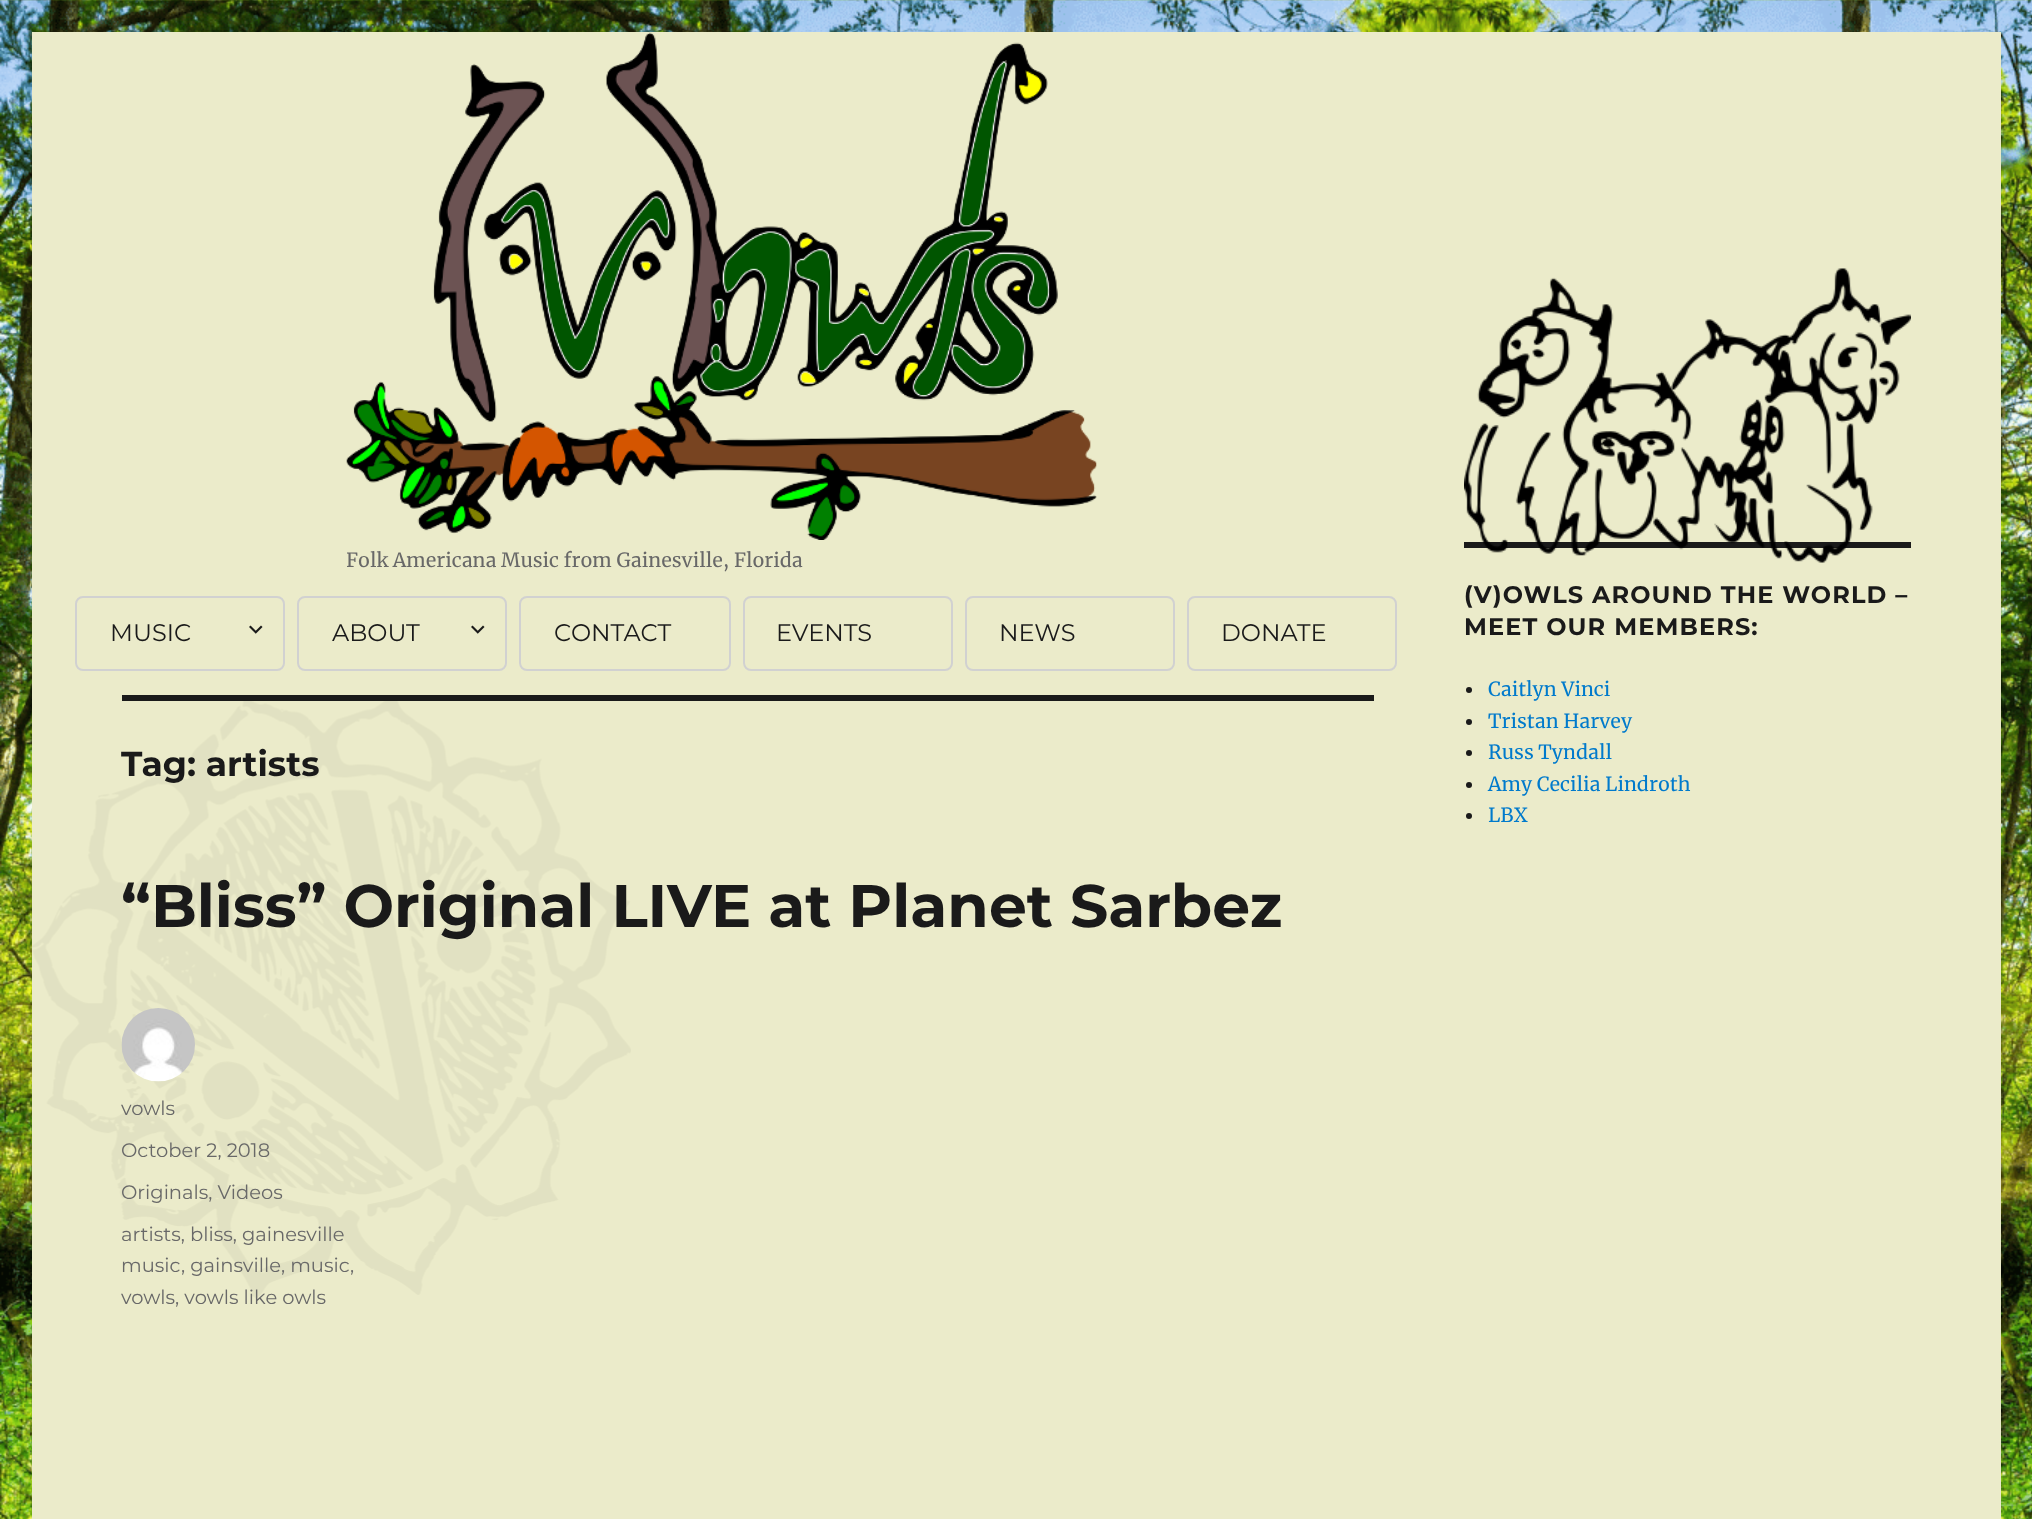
<svg xmlns="http://www.w3.org/2000/svg" width="2032" height="1519" viewBox="0 0 2032 1519">
  <defs>
    <clipPath id="clip1"><rect x="347" y="32" width="750" height="540"/></clipPath>
  </defs>
  <rect width="100%" height="100%" fill="rgb(255,255,255)"/>
  <image x="0" y="0" width="2032" height="1519" href="pic1.png"/>
  <rect x="32" y="32" width="1969" height="1487" fill="rgb(235,235,202)"/>
  <image x="346" y="32" width="751" height="508" href="pic2.png"/>
  <g clip-path="url(#clip1)">
    <text x="346" y="567" font-family="Merriweather" font-size="19.5" fill="rgb(104,104,104)">Folk Americana Music from Gainesville, Florida</text>
  </g>
  <rect x="76" y="597" width="208" height="73" rx="7" fill="none" stroke="rgb(209,209,209)" stroke-width="2"/>
  <text x="110" y="641" font-family="'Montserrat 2'" font-size="24" font-weight="100" fill="rgb(26,26,26)">MUSIC</text>
  <image x="249" y="625" width="14" height="9" href="pic3.png"/>
  <rect x="298" y="597" width="208" height="73" rx="7" fill="none" stroke="rgb(209,209,209)" stroke-width="2"/>
  <text x="332" y="641" font-family="'Montserrat 2'" font-size="24" font-weight="100" fill="rgb(26,26,26)">ABOUT</text>
  <image x="471" y="625" width="14" height="9" href="pic3.png"/>
  <rect x="520" y="597" width="210" height="73" rx="7" fill="none" stroke="rgb(209,209,209)" stroke-width="2"/>
  <text x="554" y="641" font-family="'Montserrat 2'" font-size="24" font-weight="100" fill="rgb(26,26,26)">CONTACT</text>
  <rect x="744" y="597" width="208" height="73" rx="7" fill="none" stroke="rgb(209,209,209)" stroke-width="2"/>
  <text x="776" y="641" font-family="'Montserrat 2'" font-size="24" font-weight="100" fill="rgb(26,26,26)">EVENTS</text>
  <rect x="966" y="597" width="208" height="73" rx="7" fill="none" stroke="rgb(209,209,209)" stroke-width="2"/>
  <text x="999" y="641" font-family="'Montserrat 2'" font-size="24" font-weight="100" fill="rgb(26,26,26)">NEWS</text>
  <rect x="1188" y="597" width="208" height="73" rx="7" fill="none" stroke="rgb(209,209,209)" stroke-width="2"/>
  <text x="1221" y="641" font-family="'Montserrat 2'" font-size="24" font-weight="100" fill="rgb(26,26,26)">DONATE</text>
  <image x="32" y="701" width="599" height="598" href="pic4.png"/>
  <rect x="1464" y="542" width="447" height="6" fill="rgb(26,26,26)"/>
  <image x="1464" y="268" width="447" height="295" href="pic5.png"/>
  <g font-family="Montserrat" font-size="24" font-weight="100" letter-spacing="1.1" fill="rgb(26,26,26)">
    <text>
      <tspan x="1464" y="603">(V)OWLS AROUND THE WORLD –</tspan>
      <tspan x="1464" y="635">MEET OUR MEMBERS:</tspan>
    </text>
  </g>
  <circle cx="1469" cy="690" r="3" fill="rgb(26,26,26)"/>
  <text x="1488" y="696" font-family="Merriweather" font-size="19.5" fill="rgb(0,122,204)">Caitlyn Vinci</text>
  <circle cx="1469" cy="722" r="3" fill="rgb(26,26,26)"/>
  <text x="1488" y="728" font-family="Merriweather" font-size="19.5" fill="rgb(0,122,204)">Tristan Harvey</text>
  <circle cx="1469" cy="753" r="3" fill="rgb(26,26,26)"/>
  <text x="1488" y="759" font-family="Merriweather" font-size="19.5" fill="rgb(0,122,204)">Russ Tyndall</text>
  <circle cx="1469" cy="785" r="3" fill="rgb(26,26,26)"/>
  <text x="1488" y="791" font-family="Merriweather" font-size="19.5" fill="rgb(0,122,204)">Amy Cecilia Lindroth</text>
  <circle cx="1469" cy="816" r="3" fill="rgb(26,26,26)"/>
  <text x="1488" y="822" font-family="Merriweather" font-size="19.5" fill="rgb(0,122,204)">LBX</text>
  <rect x="122" y="695" width="1252" height="6" fill="rgb(26,26,26)"/>
  <text x="121" y="776" font-family="Montserrat" font-size="34.5" font-weight="100" fill="rgb(26,26,26)">Tag: artists</text>
  <text x="121" y="927" font-family="Montserrat" font-size="60" font-weight="100" fill="rgb(26,26,26)">“Bliss” Original LIVE at Planet Sarbez</text>
  <image x="121" y="1008" width="74" height="74" href="pic6.png"/>
  <g font-family="'Montserrat 2'" font-size="19.5" font-weight="100" fill="rgb(104,104,104)">
    <text x="121" y="1115">vowls</text>
    <text x="121" y="1157">October 2, 2018</text>
    <text x="121" y="1199">Originals, Videos</text>
    <text>
      <tspan x="121" y="1241">artists, bliss, gainesville</tspan>
      <tspan x="121" y="1272">music</tspan>
    </text>
    <text x="181" y="1272">, gainsville, music</text>
    <text x="350" y="1272">,</text>
    <text x="121" y="1304">vowls, vowls like owls</text>
  </g>
</svg>
